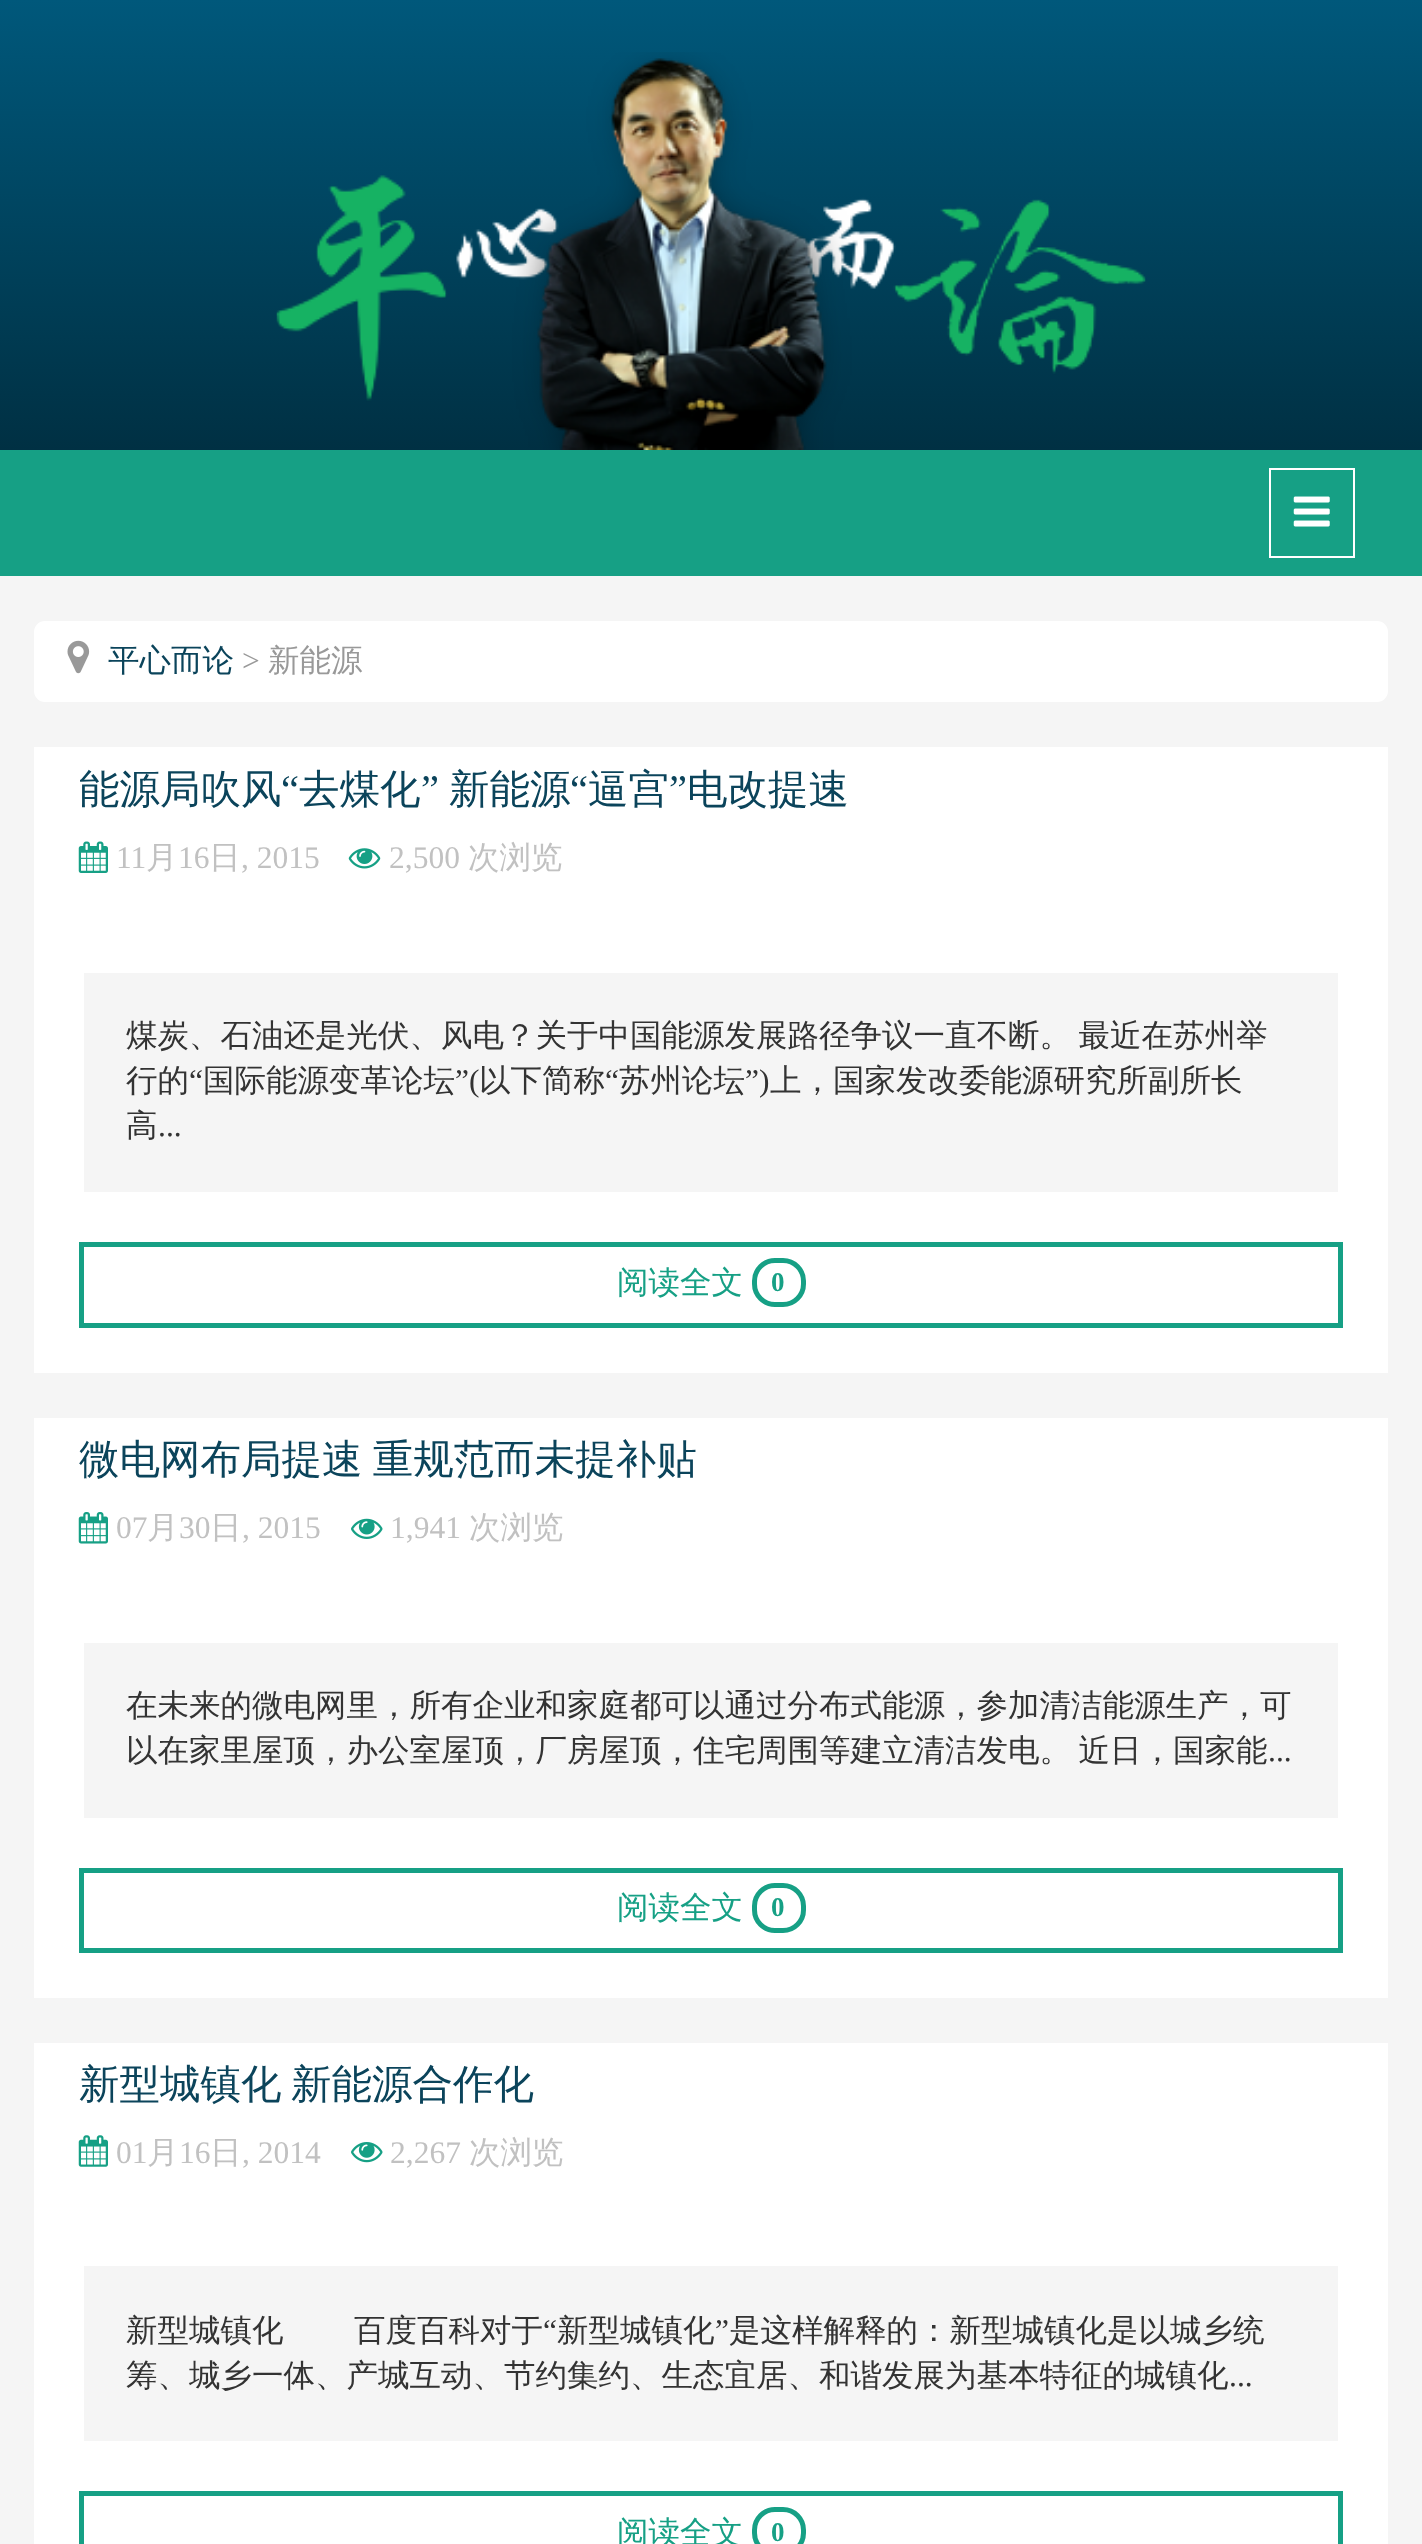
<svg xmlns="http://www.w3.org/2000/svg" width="1422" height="2544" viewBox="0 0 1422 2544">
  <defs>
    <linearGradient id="g1" gradientUnits="userSpaceOnUse" x1="711" y1="0" x2="711" y2="450"><stop offset="0" stop-color="rgb(0,88,123)"/><stop offset="1" stop-color="rgb(0,48,67)"/></linearGradient>
  </defs>
  <rect width="100%" height="100%" fill="rgb(245,245,245)"/>
  <rect x="0" y="0" width="1422" height="450" fill="url(#g1)"/>
  <image x="276" y="52" width="870" height="398" href="pic1.png"/>
  <rect x="0" y="450" width="1422" height="126" fill="rgb(22,160,133)"/>
  <rect x="1270" y="469" width="84" height="88" fill="none" stroke="rgb(255,255,255)" stroke-width="2"/>
  <image x="1293" y="496" width="37" height="31" href="pic2.png"/>
  <rect x="34" y="621" width="1354" height="81" rx="11" fill="rgb(255,255,255)"/>
  <image x="67" y="640" width="23" height="34" href="pic3.png"/>
  <text x="108" y="671" font-family="WenQuanYi Zen Hei" font-size="31.5" font-weight="500" fill="rgb(11,68,91)">平心而论</text>
  <text x="242" y="671" font-family="Liberation Serif" font-size="31.5" fill="rgb(153,153,153)">&gt;</text>
  <text x="268" y="671" font-family="WenQuanYi Zen Hei" font-size="31.5" font-weight="500" fill="rgb(153,153,153)">新能源</text>
  <rect x="34" y="747" width="1354" height="626" fill="rgb(255,255,255)"/>
  <text x="79" y="803" font-family="WenQuanYi Zen Hei" font-size="40.5" font-weight="500" fill="rgb(11,68,91)">能源局吹风</text>
  <text x="281" y="803" font-family="Liberation Serif" font-size="40.5" fill="rgb(11,68,91)">“</text>
  <text x="299" y="803" font-family="WenQuanYi Zen Hei" font-size="40.5" font-weight="500" fill="rgb(11,68,91)">去煤化</text>
  <text x="421" y="803" font-family="Liberation Serif" font-size="40.5" fill="rgb(11,68,91)">”</text>
  <text x="449" y="803" font-family="WenQuanYi Zen Hei" font-size="40.5" font-weight="500" fill="rgb(11,68,91)">新能源</text>
  <text x="570" y="803" font-family="Liberation Serif" font-size="40.5" fill="rgb(11,68,91)">“</text>
  <text x="588" y="803" font-family="WenQuanYi Zen Hei" font-size="40.5" font-weight="500" fill="rgb(11,68,91)">逼宫</text>
  <text x="669" y="803" font-family="Liberation Serif" font-size="40.5" fill="rgb(11,68,91)">”</text>
  <text x="687" y="803" font-family="WenQuanYi Zen Hei" font-size="40.5" font-weight="500" fill="rgb(11,68,91)">电改提速</text>
  <image x="78" y="841" width="30" height="32" href="pic4.png"/>
  <text x="116" y="868" font-family="Liberation Serif" font-size="31.5" fill="rgb(193,193,193)">11</text>
  <text x="146" y="868" font-family="WenQuanYi Zen Hei" font-size="31.5" font-weight="500" fill="rgb(193,193,193)">月</text>
  <text x="178" y="868" font-family="Liberation Serif" font-size="31.5" fill="rgb(193,193,193)">16</text>
  <text x="209" y="868" font-family="WenQuanYi Zen Hei" font-size="31.5" font-weight="500" fill="rgb(193,193,193)">日</text>
  <text x="241" y="868" font-family="Liberation Serif" font-size="31.5" fill="rgb(193,193,193)">, 2015</text>
  <image x="348" y="848" width="33" height="21" href="pic5.png"/>
  <text x="389" y="868" font-family="Liberation Serif" font-size="31.5" fill="rgb(193,193,193)">2,500</text>
  <text x="468" y="868" font-family="WenQuanYi Zen Hei" font-size="31.5" font-weight="500" fill="rgb(193,193,193)">次浏览</text>
  <rect x="84" y="973" width="1254" height="219" fill="rgb(245,245,245)"/>
  <g font-family="WenQuanYi Zen Hei" font-size="31.5" font-weight="500" fill="rgb(51,51,51)">
    <text>
      <tspan x="126" y="1046" word-spacing="-2">煤炭、石油还是光伏、风电？关于中国能源发展路径争议一直不断。 最近在苏州举</tspan>
      <tspan x="126" y="1091">行的</tspan>
    </text>
  </g>
  <text x="189" y="1091" font-family="Liberation Serif" font-size="31.5" fill="rgb(51,51,51)">“</text>
  <text x="203" y="1091" font-family="WenQuanYi Zen Hei" font-size="31.5" font-weight="500" fill="rgb(51,51,51)">国际能源变革论坛</text>
  <text x="455" y="1091" font-family="Liberation Serif" font-size="31.5" fill="rgb(51,51,51)">”(</text>
  <text x="479" y="1091" font-family="WenQuanYi Zen Hei" font-size="31.5" font-weight="500" fill="rgb(51,51,51)">以下简称</text>
  <text x="605" y="1091" font-family="Liberation Serif" font-size="31.5" fill="rgb(51,51,51)">“</text>
  <text x="619" y="1091" font-family="WenQuanYi Zen Hei" font-size="31.5" font-weight="500" fill="rgb(51,51,51)">苏州论坛</text>
  <text x="745" y="1091" font-family="Liberation Serif" font-size="31.5" fill="rgb(51,51,51)">”)</text>
  <g font-family="WenQuanYi Zen Hei" font-size="31.5" font-weight="500" fill="rgb(51,51,51)">
    <text x="770" y="1091">上，国家发改委能源研究所副所长</text>
    <text x="126" y="1136">高</text>
  </g>
  <text x="158" y="1136" font-family="Liberation Serif" font-size="31.5" fill="rgb(51,51,51)">...</text>
  <rect x="81.5" y="1244.5" width="1259" height="81" fill="none" stroke="rgb(22,160,133)" stroke-width="5"/>
  <text x="617" y="1293" font-family="WenQuanYi Zen Hei" font-size="31.5" font-weight="500" fill="rgb(22,160,133)">阅读全文</text>
  <rect x="754.5" y="1260.5" width="49" height="44" rx="20.5" fill="none" stroke="rgb(22,160,133)" stroke-width="5"/>
  <text x="771" y="1291" font-family="Liberation Serif" font-size="27" font-weight="bold" fill="rgb(22,160,133)">0</text>
  <rect x="34" y="1418" width="1354" height="580" fill="rgb(255,255,255)"/>
  <text x="79" y="1473" word-spacing="-2" font-family="WenQuanYi Zen Hei" font-size="40.5" font-weight="500" fill="rgb(11,68,91)">微电网布局提速 重规范而未提补贴</text>
  <image x="78" y="1512" width="30" height="32" href="pic6.png"/>
  <text x="116" y="1538" font-family="Liberation Serif" font-size="31.5" fill="rgb(193,193,193)">07</text>
  <text x="147" y="1538" font-family="WenQuanYi Zen Hei" font-size="31.5" font-weight="500" fill="rgb(193,193,193)">月</text>
  <text x="179" y="1538" font-family="Liberation Serif" font-size="31.5" fill="rgb(193,193,193)">30</text>
  <text x="210" y="1538" font-family="WenQuanYi Zen Hei" font-size="31.5" font-weight="500" fill="rgb(193,193,193)">日</text>
  <text x="242" y="1538" font-family="Liberation Serif" font-size="31.5" fill="rgb(193,193,193)">, 2015</text>
  <image x="351" y="1518" width="32" height="21" href="pic7.png"/>
  <text x="390" y="1538" font-family="Liberation Serif" font-size="31.5" fill="rgb(193,193,193)">1,941</text>
  <text x="469" y="1538" font-family="WenQuanYi Zen Hei" font-size="31.5" font-weight="500" fill="rgb(193,193,193)">次浏览</text>
  <rect x="84" y="1643" width="1254" height="175" fill="rgb(245,245,245)"/>
  <g font-family="WenQuanYi Zen Hei" font-size="31.5" font-weight="500" fill="rgb(51,51,51)">
    <text>
      <tspan x="126" y="1716">在未来的微电网里，所有企业和家庭都可以通过分布式能源，参加清洁能源生产，可</tspan>
      <tspan x="126" y="1761" word-spacing="-2">以在家里屋顶，办公室屋顶，厂房屋顶，住宅周围等建立清洁发电。 近日，国家能</tspan>
    </text>
  </g>
  <text x="1268" y="1761" font-family="Liberation Serif" font-size="31.5" fill="rgb(51,51,51)">...</text>
  <rect x="81.5" y="1870.5" width="1259" height="80" fill="none" stroke="rgb(22,160,133)" stroke-width="5"/>
  <text x="617" y="1918" font-family="WenQuanYi Zen Hei" font-size="31.5" font-weight="500" fill="rgb(22,160,133)">阅读全文</text>
  <rect x="754.5" y="1885.5" width="49" height="45" rx="20.5" fill="none" stroke="rgb(22,160,133)" stroke-width="5"/>
  <text x="771" y="1916" font-family="Liberation Serif" font-size="27" font-weight="bold" fill="rgb(22,160,133)">0</text>
  <rect x="34" y="2043" width="1354" height="501" fill="rgb(255,255,255)"/>
  <g font-family="WenQuanYi Zen Hei" font-size="40.5" font-weight="500" fill="rgb(11,68,91)">
    <text x="79" y="2098">新型城镇化</text>
    <text x="291" y="2098">新能源合作化</text>
  </g>
  <image x="78" y="2135" width="30" height="32" href="pic8.png"/>
  <text x="116" y="2163" font-family="Liberation Serif" font-size="31.5" fill="rgb(193,193,193)">01</text>
  <text x="147" y="2163" font-family="WenQuanYi Zen Hei" font-size="31.5" font-weight="500" fill="rgb(193,193,193)">月</text>
  <text x="179" y="2163" font-family="Liberation Serif" font-size="31.5" fill="rgb(193,193,193)">16</text>
  <text x="210" y="2163" font-family="WenQuanYi Zen Hei" font-size="31.5" font-weight="500" fill="rgb(193,193,193)">日</text>
  <text x="242" y="2163" font-family="Liberation Serif" font-size="31.5" fill="rgb(193,193,193)">, 2014</text>
  <image x="351" y="2142" width="32" height="21" href="pic9.png"/>
  <text x="390" y="2163" font-family="Liberation Serif" font-size="31.5" fill="rgb(193,193,193)">2,267</text>
  <text x="469" y="2163" font-family="WenQuanYi Zen Hei" font-size="31.5" font-weight="500" fill="rgb(193,193,193)">次浏览</text>
  <rect x="84" y="2266" width="1254" height="175" fill="rgb(245,245,245)"/>
  <g font-family="WenQuanYi Zen Hei" font-size="31.5" font-weight="500" fill="rgb(51,51,51)">
    <text x="126" y="2341">新型城镇化</text>
    <text x="354" y="2341">百度百科对于</text>
  </g>
  <text x="543" y="2341" font-family="Liberation Serif" font-size="31.5" fill="rgb(51,51,51)">“</text>
  <text x="557" y="2341" font-family="WenQuanYi Zen Hei" font-size="31.5" font-weight="500" fill="rgb(51,51,51)">新型城镇化</text>
  <text x="715" y="2341" font-family="Liberation Serif" font-size="31.5" fill="rgb(51,51,51)">”</text>
  <g font-family="WenQuanYi Zen Hei" font-size="31.5" font-weight="500" fill="rgb(51,51,51)">
    <text x="729" y="2341">是这样解释的：新型城镇化是以城乡统</text>
    <text x="126" y="2386">筹、城乡一体、产城互动、节约集约、生态宜居、和谐发展为基本特征的城镇化</text>
  </g>
  <text x="1229" y="2386" font-family="Liberation Serif" font-size="31.5" fill="rgb(51,51,51)">...</text>
  <rect x="81.5" y="2493.5" width="1259" height="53" fill="none" stroke="rgb(22,160,133)" stroke-width="5"/>
  <text x="617" y="2543" font-family="WenQuanYi Zen Hei" font-size="31.5" font-weight="500" fill="rgb(22,160,133)">阅读全文</text>
  <rect x="754.5" y="2509.5" width="49" height="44" rx="20.5" fill="none" stroke="rgb(22,160,133)" stroke-width="5"/>
  <text x="771" y="2541" font-family="Liberation Serif" font-size="27" font-weight="bold" fill="rgb(22,160,133)">0</text>
</svg>
